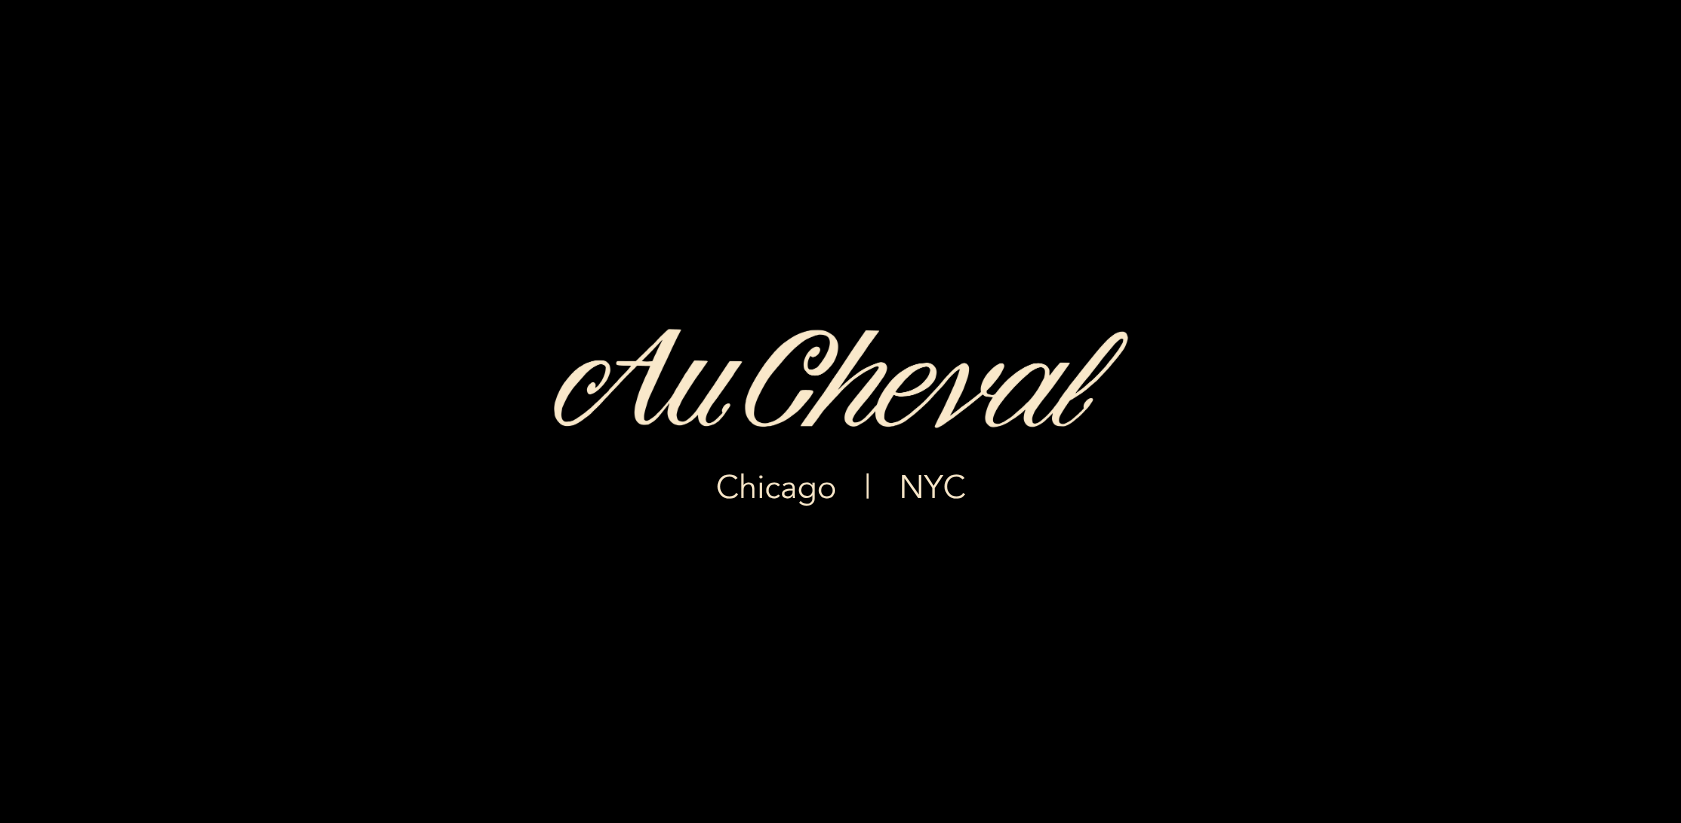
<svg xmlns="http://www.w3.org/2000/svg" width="1681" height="823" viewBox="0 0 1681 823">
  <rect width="100%" height="100%" fill="rgb(0,0,0)"/>
  <image x="554" y="328" width="575" height="101" href="pic1.png"/>
  <g font-family="Avenir" font-size="32.5" fill="rgb(249,232,202)">
    <text x="716" y="498">Chicago</text>
    <text x="864" y="498">|</text>
    <text x="899" y="498">NYC</text>
  </g>
</svg>
